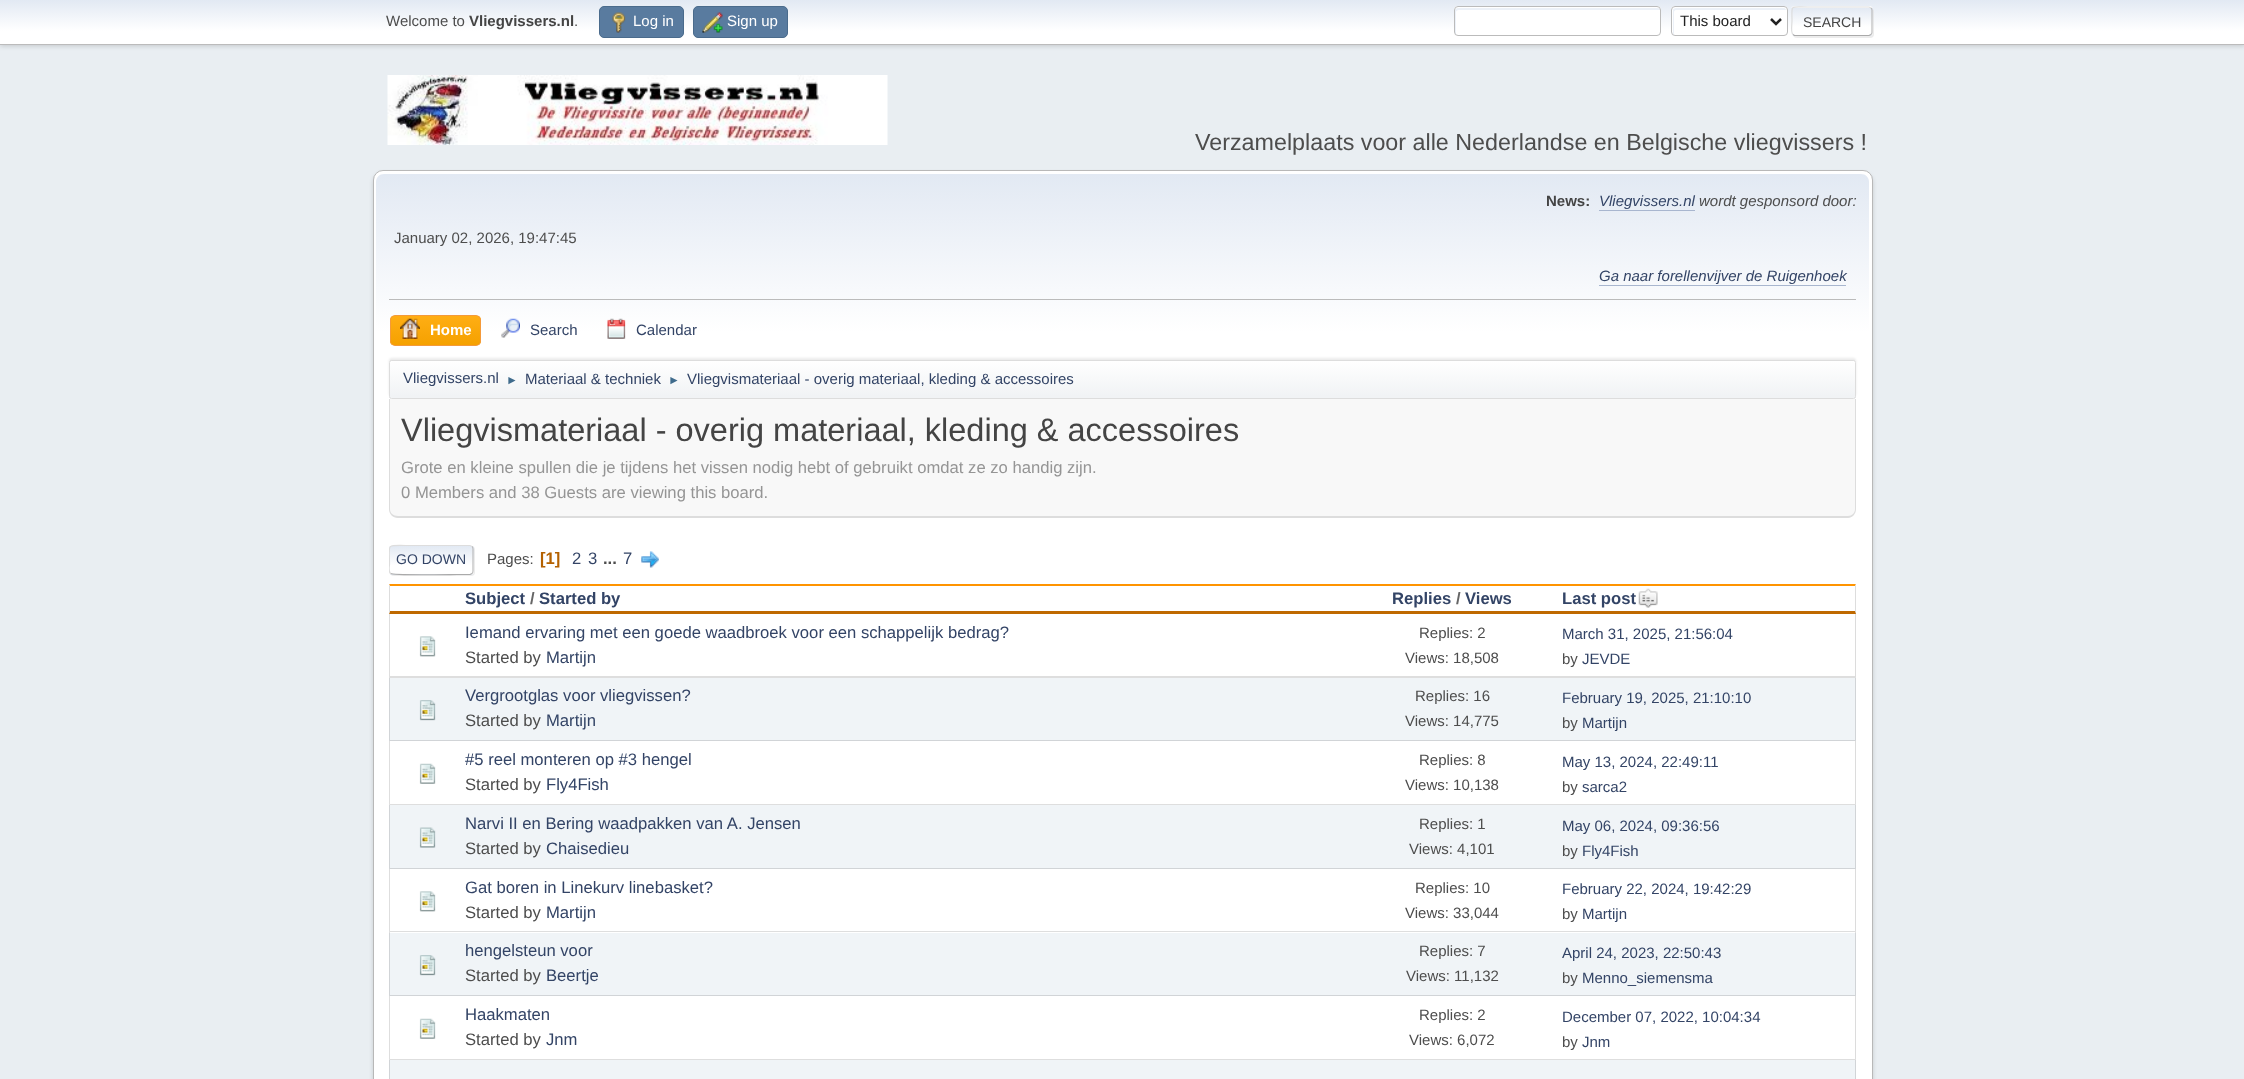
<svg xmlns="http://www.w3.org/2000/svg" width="2244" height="1079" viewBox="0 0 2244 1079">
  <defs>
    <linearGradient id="g1" gradientUnits="userSpaceOnUse" x1="1123" y1="0" x2="1123" y2="44"><stop offset="0" stop-color="rgb(226,233,243)"/><stop offset="0.7" stop-color="rgb(255,255,255)"/></linearGradient>
    <clipPath id="clip1"><rect x="1791" y="6" width="82" height="30" rx="4"/></clipPath>
    <linearGradient id="g2" gradientUnits="userSpaceOnUse" x1="1832" y1="-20" x2="1832" y2="7.5"><stop offset="0" stop-color="rgb(226,233,243)"/><stop offset="0.7" stop-color="rgb(255,255,255)"/></linearGradient>
    <linearGradient id="g3" gradientUnits="userSpaceOnUse" x1="1832" y1="7.5" x2="1832" y2="35"><stop offset="0" stop-color="rgb(226,233,243)"/><stop offset="0.7" stop-color="rgb(255,255,255)"/></linearGradient>
    <linearGradient id="g4" gradientUnits="userSpaceOnUse" x1="1832" y1="35" x2="1832" y2="63"><stop offset="0" stop-color="rgb(226,233,243)"/><stop offset="0.7" stop-color="rgb(255,255,255)"/></linearGradient>
    <linearGradient id="g5" gradientUnits="userSpaceOnUse" x1="1123" y1="174" x2="1123" y2="401"><stop offset="0" stop-color="rgb(226,233,243)"/><stop offset="0.7" stop-color="rgb(255,255,255)"/></linearGradient>
    <clipPath id="clip2"><rect x="390" y="315" width="91" height="31" rx="5"/></clipPath>
    <linearGradient id="g6" gradientUnits="userSpaceOnUse" x1="436" y1="316" x2="436" y2="345"><stop offset="0" stop-color="rgb(255,174,20)"/><stop offset="1" stop-color="rgb(245,161,0)"/></linearGradient>
    <clipPath id="clip3"><rect x="389" y="360" width="1467" height="39" rx="2.5"/></clipPath>
    <linearGradient id="g7" gradientUnits="userSpaceOnUse" x1="1123" y1="361" x2="1123" y2="398"><stop offset="0" stop-color="rgb(255,255,255)"/><stop offset="0.95" stop-color="rgb(241,243,245)"/></linearGradient>
    <clipPath id="clip4"><rect x="389" y="545" width="85" height="30" rx="4"/></clipPath>
    <linearGradient id="g8" gradientUnits="userSpaceOnUse" x1="431" y1="546" x2="431" y2="574"><stop offset="0" stop-color="rgb(226,233,243)"/><stop offset="0.7" stop-color="rgb(255,255,255)"/></linearGradient>
    <linearGradient id="g9" gradientUnits="userSpaceOnUse" x1="431" y1="574" x2="431" y2="601"><stop offset="0" stop-color="rgb(226,233,243)"/><stop offset="0.7" stop-color="rgb(255,255,255)"/></linearGradient>
    <clipPath id="clip5"><rect x="389" y="536" width="1467" height="48"/></clipPath>
  </defs>
  <rect width="100%" height="100%" fill="rgb(233,238,242)"/>
  <rect x="0" y="1" width="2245" height="45" fill="rgba(0,0,0,0.16)" filter="blur(2.5px)"/>
  <rect x="0" y="0" width="2244" height="44" fill="url(#g1)"/>
  <rect x="0" y="44" width="2244" height="1" fill="rgb(187,187,187)"/>
  <text x="386" y="26" font-family="Liberation Sans" font-size="15" fill="rgb(77,77,77)">Welcome to</text>
  <text x="469" y="26" font-family="Liberation Sans" font-size="15" font-weight="bold" fill="rgb(68,68,68)">Vliegvissers.nl</text>
  <text x="574" y="26" font-family="Liberation Sans" font-size="15" fill="rgb(77,77,77)">.</text>
  <rect x="599.5" y="6.5" width="84" height="31" rx="4.5" fill="rgb(89,123,159)" stroke="rgb(74,107,140)"/>
  <image x="612" y="12" width="14" height="21" href="pic1.png"/>
  <text x="633" y="26" font-family="Liberation Sans" font-size="15" fill="rgb(255,255,255)">Log in</text>
  <rect x="693.5" y="6.5" width="94" height="31" rx="4.5" fill="rgb(89,123,159)" stroke="rgb(74,107,140)"/>
  <image x="702" y="12" width="21" height="21" href="pic2.png"/>
  <text x="727" y="26" font-family="Liberation Sans" font-size="15" fill="rgb(255,255,255)">Sign up</text>
  <rect x="1454" y="6" width="207" height="30" rx="4" fill="rgb(255,255,255)"/>
  <path d="M1459 10H1660C1660 9 1659 8 1658 8H1458C1456 8 1455 9 1455 10V32C1455 33 1455 34 1456 35V12C1456 11 1457 10 1459 10Z" fill="rgb(236,241,248)"/>
  <rect x="1454.5" y="6.5" width="206" height="29" rx="3.5" fill="none" stroke="rgb(187,187,187)"/>
  <rect x="1671" y="6" width="117" height="30" rx="4" fill="rgb(255,255,255)"/>
  <path d="M1676 10H1786C1786 9 1785 8 1784 8H1676C1674 8 1673 9 1673 10V32C1673 33 1673 34 1674 35V12C1674 11 1675 10 1676 10Z" fill="rgb(236,241,248)"/>
  <rect x="1671.5" y="6.5" width="116" height="29" rx="3.5" fill="none" stroke="rgb(187,187,187)"/>
  <path d="M1771 19L1776 24L1781 19" fill="none" stroke="rgb(34,34,34)" stroke-width="2.5"/>
  <text x="1680" y="26" font-family="Liberation Sans" font-size="15" fill="rgb(34,34,34)">This board</text>
  <rect x="1793" y="8" width="81" height="30" rx="4" fill="rgba(221,221,221,0.57)" filter="blur(0.5px)"/>
  <g clip-path="url(#clip1)">
    <rect x="1791" y="6" width="82" height="2" fill="url(#g2)"/>
    <rect x="1791" y="8" width="82" height="27" fill="url(#g3)"/>
    <rect x="1791" y="35" width="82" height="1" fill="url(#g4)"/>
  </g>
  <path d="M1871 8C1871.5 8.5 1872 9 1872 10V32.5C1872 33.5 1871.5 34 1871 34.5" fill="none" stroke="rgb(187,187,187)" stroke-width="1.2"/>
  <path d="M1871 34.5L1869 35.5H1794.5L1793 34.5" fill="none" stroke="rgb(170,170,170)" stroke-width="1.2"/>
  <path d="M1793 34.5C1790.5 32.5 1792 24 1792 21C1792 4 1789.5 7 1807.5 7H1869L1871 8" fill="none" stroke="rgb(221,221,221)" stroke-width="1.2"/>
  <text x="1803" y="27" font-family="Liberation Sans" font-size="14" fill="rgb(68,68,68)">SEARCH</text>
  <image x="387" y="75" width="501" height="70" href="pic3.png"/>
  <text x="1195" y="150" font-family="Liberation Sans" font-size="23.3" fill="rgb(77,77,77)">Verzamelplaats voor alle Nederlandse en Belgische vliegvissers !</text>
  <rect x="373" y="173" width="1500" height="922" rx="10" fill="rgba(0,0,0,0.14)" filter="blur(2px)"/>
  <rect x="373.5" y="170.5" width="1499" height="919" rx="9.5" fill="rgb(255,255,255)" stroke="rgb(184,184,184)"/>
  <path d="M384 174H1861C1865.5 174 1869 177.5 1869 182V401H376V182C376 177.5 379.5 174 384 174Z" fill="url(#g5)"/>
  <rect x="389" y="299" width="1467" height="1" fill="rgb(187,187,187)"/>
  <text x="394" y="243" font-family="Liberation Sans" font-size="15" fill="rgb(77,77,77)">January 02, 2026, 19:47:45</text>
  <text x="1546" y="206" font-family="Liberation Sans" font-size="15" font-weight="bold" fill="rgb(68,68,68)">News:</text>
  <text x="1599" y="206" font-family="Liberation Sans" font-size="15" font-style="italic" fill="rgb(51,68,102)">Vliegvissers.nl</text>
  <rect x="1599" y="210" width="96" height="1" fill="rgb(168,182,207)"/>
  <text x="1699" y="206" font-family="Liberation Sans" font-size="15" font-style="italic" fill="rgb(77,77,77)">wordt gesponsord door:</text>
  <text x="1599" y="281" font-family="Liberation Sans" font-size="15" font-style="italic" fill="rgb(51,68,102)">Ga naar forellenvijver de Ruigenhoek</text>
  <rect x="1599" y="285" width="247" height="1" fill="rgb(168,182,207)"/>
  <g clip-path="url(#clip2)">
    <rect x="390" y="316" width="91" height="29" fill="url(#g6)"/>
  </g>
  <rect x="390.5" y="315.5" width="90" height="30" rx="4.5" fill="none" stroke="rgb(244,154,58)"/>
  <image x="400" y="318" width="20" height="21" href="pic4.png"/>
  <text x="430" y="335" font-family="Liberation Sans" font-size="15" font-weight="bold" fill="rgb(255,255,255)">Home</text>
  <image x="501" y="318" width="19" height="20" href="pic5.png"/>
  <text x="530" y="335" font-family="Liberation Sans" font-size="15" fill="rgb(51,68,102)">Search</text>
  <image x="607" y="318" width="19" height="21" href="pic6.png"/>
  <text x="636" y="335" font-family="Liberation Sans" font-size="15" fill="rgb(51,68,102)">Calendar</text>
  <rect x="389" y="358" width="1467" height="38" rx="2.5" fill="rgba(0,0,0,0.08)" filter="blur(1px)"/>
  <g clip-path="url(#clip3)">
    <rect x="389" y="361" width="1467" height="37" fill="url(#g7)"/>
  </g>
  <rect x="389.5" y="360.5" width="1466" height="38" rx="2" fill="none" stroke="rgb(221,221,221)"/>
  <text x="403" y="383" font-family="Liberation Sans" font-size="15" fill="rgb(51,68,102)">Vliegvissers.nl</text>
  <text x="506" y="384" font-family="Liberation Sans" font-size="12" fill="rgb(63,107,140)">►</text>
  <text x="525" y="384" font-family="Liberation Sans" font-size="15" fill="rgb(51,68,102)">Materiaal &amp; techniek</text>
  <text x="668" y="384" font-family="Liberation Sans" font-size="12" fill="rgb(63,107,140)">►</text>
  <text x="687" y="384" font-family="Liberation Sans" font-size="15" fill="rgb(51,68,102)">Vliegvismateriaal - overig materiaal, kleding &amp; accessoires</text>
  <path d="M389 399H1856V509C1856 514 1852 518 1847 518H398C393 518 389 514 389 509Z" fill="rgb(248,248,248)"/>
  <path d="M389 399H1856V509C1856 514 1852 518 1848 518H398C393 518 389 514 389 509ZM390 399H1855V509C1855 513 1852 516 1848 516H398C393 516 390 513 390 509Z" fill="rgb(221,221,221)" fill-rule="evenodd"/>
  <text x="401" y="441" font-family="Liberation Sans" font-size="32.5" fill="rgb(68,68,68)">Vliegvismateriaal - overig materiaal, kleding &amp; accessoires</text>
  <g font-family="Liberation Sans" font-size="16.65" fill="rgb(149,149,149)">
    <text>
      <tspan x="401" y="473">Grote en kleine spullen die je tijdens het vissen nodig hebt of gebruikt omdat ze zo handig zijn.</tspan>
      <tspan x="401" y="498">0 Members and 38 Guests are viewing this board.</tspan>
    </text>
  </g>
  <rect x="390" y="546" width="85" height="30" rx="4" fill="rgba(221,221,221,0.57)" filter="blur(0.5px)"/>
  <rect x="389" y="545" width="85" height="30" rx="4" fill="rgb(255,255,255)"/>
  <g clip-path="url(#clip4)">
    <rect x="389" y="546" width="85" height="28" fill="url(#g8)"/>
    <rect x="389" y="574" width="85" height="1" fill="url(#g9)"/>
  </g>
  <path d="M472 546.5C473 547 473 548 473 549V571C473 572 473 573 472 573.5" fill="none" stroke="rgb(187,187,187)" stroke-width="1.2"/>
  <path d="M472 573.5L470 574.5H457C449.5 574.5 392.5 575.5 390.5 573.5" fill="none" stroke="rgb(170,170,170)" stroke-width="1.2"/>
  <g clip-path="url(#clip5)">
    <path d="M390.5 573.5C388 571 389.5 566.5 389.5 564C389.5 543.5 385.5 545.5 405.5 545.5H470L472 546.5" fill="none" stroke="rgb(221,221,221)" stroke-width="1.2"/>
  </g>
  <text x="396" y="564" font-family="Liberation Sans" font-size="14" fill="rgb(51,68,102)">GO DOWN</text>
  <text x="487" y="564" font-family="Liberation Sans" font-size="15" fill="rgb(77,77,77)">Pages:</text>
  <text x="540" y="564" font-family="Liberation Sans" font-size="16.65" font-weight="bold" fill="rgb(180,97,0)">[1]</text>
  <g font-family="Liberation Sans" font-size="16.65" fill="rgb(51,68,102)">
    <text x="572" y="564">2</text>
    <text x="588" y="564">3</text>
  </g>
  <text x="603" y="564" font-family="Liberation Sans" font-size="16.65" font-weight="bold" fill="rgb(77,77,77)">...</text>
  <text x="623" y="564" font-family="Liberation Sans" font-size="16.65" fill="rgb(51,68,102)">7</text>
  <image x="641" y="551" width="18" height="17" href="pic7.png"/>
  <path d="M389 584H1856L1855 586H390Z" fill="rgb(255,148,0)"/>
  <path d="M1856 584V614L1855 611V586Z" fill="rgb(221,221,221)"/>
  <path d="M1856 614H389L390 611H1855Z" fill="rgb(191,105,0)"/>
  <path d="M389 614V584L390 586V611Z" fill="rgb(221,221,221)"/>
  <text x="465" y="604" font-family="Liberation Sans" font-size="16.65" font-weight="bold" fill="rgb(51,68,102)">Subject</text>
  <text x="530" y="604" font-family="Liberation Sans" font-size="16.65" font-weight="bold" fill="rgb(102,102,102)">/</text>
  <g font-family="Liberation Sans" font-size="16.65" font-weight="bold" fill="rgb(51,68,102)">
    <text x="539" y="604">Started by</text>
    <text x="1392" y="604">Replies</text>
  </g>
  <text x="1456" y="604" font-family="Liberation Sans" font-size="16.65" font-weight="bold" fill="rgb(102,102,102)">/</text>
  <g font-family="Liberation Sans" font-size="16.65" font-weight="bold" fill="rgb(51,68,102)">
    <text x="1465" y="604">Views</text>
    <text x="1562" y="604">Last post</text>
  </g>
  <image x="1638" y="588" width="20" height="20" href="pic8.png"/>
  <path d="M1856 614V678L1855 676V614Z" fill="rgb(220,220,220)"/>
  <path d="M1856 678H389L390 676H1855Z" fill="rgba(0,0,0,0.13)"/>
  <path d="M389 678V614H390V676Z" fill="rgba(0,0,0,0.13)"/>
  <image x="419" y="636" width="17" height="21" href="pic9.png"/>
  <text x="465" y="638" font-family="Liberation Sans" font-size="16.65" fill="rgb(51,68,102)">Iemand ervaring met een goede waadbroek voor een schappelijk bedrag?</text>
  <text x="465" y="663" font-family="Liberation Sans" font-size="16.65" fill="rgb(77,77,77)">Started by</text>
  <text x="546" y="663" font-family="Liberation Sans" font-size="16.65" fill="rgb(51,68,102)">Martijn</text>
  <g font-family="Liberation Sans" font-size="15" fill="rgb(77,77,77)">
    <text x="1419" y="638">Replies: 2</text>
    <text x="1405" y="663">Views: 18,508</text>
  </g>
  <text x="1562" y="639" font-family="Liberation Sans" font-size="15" fill="rgb(51,68,102)">March 31, 2025, 21:56:04</text>
  <text x="1562" y="664" font-family="Liberation Sans" font-size="15" fill="rgb(77,77,77)">by</text>
  <text x="1582" y="664" font-family="Liberation Sans" font-size="15" fill="rgb(51,68,102)">JEVDE</text>
  <rect x="389" y="678" width="1467" height="63" fill="rgb(240,244,247)"/>
  <path d="M1856 678V741L1855 740V678Z" fill="rgb(209,212,215)"/>
  <path d="M1856 741H389L390 740H1855Z" fill="rgba(0,0,0,0.13)"/>
  <path d="M389 741V678H390V740Z" fill="rgba(0,0,0,0.13)"/>
  <image x="419" y="700" width="17" height="21" href="pic10.png"/>
  <text x="465" y="701" font-family="Liberation Sans" font-size="16.65" fill="rgb(51,68,102)">Vergrootglas voor vliegvissen?</text>
  <text x="465" y="726" font-family="Liberation Sans" font-size="16.65" fill="rgb(77,77,77)">Started by</text>
  <text x="546" y="726" font-family="Liberation Sans" font-size="16.65" fill="rgb(51,68,102)">Martijn</text>
  <g font-family="Liberation Sans" font-size="15" fill="rgb(77,77,77)">
    <text x="1415" y="701">Replies: 16</text>
    <text x="1405" y="726">Views: 14,775</text>
  </g>
  <text x="1562" y="703" font-family="Liberation Sans" font-size="15" fill="rgb(51,68,102)">February 19, 2025, 21:10:10</text>
  <text x="1562" y="728" font-family="Liberation Sans" font-size="15" fill="rgb(77,77,77)">by</text>
  <text x="1582" y="728" font-family="Liberation Sans" font-size="15" fill="rgb(51,68,102)">Martijn</text>
  <path d="M1856 741V805L1855 804V741Z" fill="rgb(220,220,220)"/>
  <path d="M1856 805H389L390 804H1855Z" fill="rgba(0,0,0,0.13)"/>
  <path d="M389 805V741H390V804Z" fill="rgba(0,0,0,0.13)"/>
  <image x="419" y="763" width="17" height="21" href="pic11.png"/>
  <text x="465" y="765" font-family="Liberation Sans" font-size="16.65" fill="rgb(51,68,102)">#5 reel monteren op #3 hengel</text>
  <text x="465" y="790" font-family="Liberation Sans" font-size="16.65" fill="rgb(77,77,77)">Started by</text>
  <text x="546" y="790" font-family="Liberation Sans" font-size="16.65" fill="rgb(51,68,102)">Fly4Fish</text>
  <g font-family="Liberation Sans" font-size="15" fill="rgb(77,77,77)">
    <text x="1419" y="765">Replies: 8</text>
    <text x="1405" y="790">Views: 10,138</text>
  </g>
  <text x="1562" y="767" font-family="Liberation Sans" font-size="15" fill="rgb(51,68,102)">May 13, 2024, 22:49:11</text>
  <text x="1562" y="792" font-family="Liberation Sans" font-size="15" fill="rgb(77,77,77)">by</text>
  <text x="1582" y="792" font-family="Liberation Sans" font-size="15" fill="rgb(51,68,102)">sarca2</text>
  <rect x="389" y="805" width="1467" height="64" fill="rgb(240,244,247)"/>
  <path d="M1856 805V869L1855 868V805Z" fill="rgb(209,212,215)"/>
  <path d="M1856 869H389L390 868H1855Z" fill="rgba(0,0,0,0.13)"/>
  <path d="M389 869V805H390V868Z" fill="rgba(0,0,0,0.13)"/>
  <image x="419" y="827" width="17" height="21" href="pic12.png"/>
  <text x="465" y="829" font-family="Liberation Sans" font-size="16.65" fill="rgb(51,68,102)">Narvi II en Bering waadpakken van A. Jensen</text>
  <text x="465" y="854" font-family="Liberation Sans" font-size="16.65" fill="rgb(77,77,77)">Started by</text>
  <text x="546" y="854" font-family="Liberation Sans" font-size="16.65" fill="rgb(51,68,102)">Chaisedieu</text>
  <g font-family="Liberation Sans" font-size="15" fill="rgb(77,77,77)">
    <text x="1419" y="829">Replies: 1</text>
    <text x="1409" y="854">Views: 4,101</text>
  </g>
  <text x="1562" y="831" font-family="Liberation Sans" font-size="15" fill="rgb(51,68,102)">May 06, 2024, 09:36:56</text>
  <text x="1562" y="856" font-family="Liberation Sans" font-size="15" fill="rgb(77,77,77)">by</text>
  <text x="1582" y="856" font-family="Liberation Sans" font-size="15" fill="rgb(51,68,102)">Fly4Fish</text>
  <path d="M1856 869V932L1855 931V869Z" fill="rgb(220,220,220)"/>
  <path d="M1856 932H389L390 931H1855Z" fill="rgba(0,0,0,0.13)"/>
  <path d="M389 932V869H390V931Z" fill="rgba(0,0,0,0.13)"/>
  <image x="419" y="891" width="17" height="21" href="pic9.png"/>
  <text x="465" y="893" font-family="Liberation Sans" font-size="16.65" fill="rgb(51,68,102)">Gat boren in Linekurv linebasket?</text>
  <text x="465" y="918" font-family="Liberation Sans" font-size="16.65" fill="rgb(77,77,77)">Started by</text>
  <text x="546" y="918" font-family="Liberation Sans" font-size="16.65" fill="rgb(51,68,102)">Martijn</text>
  <g font-family="Liberation Sans" font-size="15" fill="rgb(77,77,77)">
    <text x="1415" y="893">Replies: 10</text>
    <text x="1405" y="918">Views: 33,044</text>
  </g>
  <text x="1562" y="894" font-family="Liberation Sans" font-size="15" fill="rgb(51,68,102)">February 22, 2024, 19:42:29</text>
  <text x="1562" y="919" font-family="Liberation Sans" font-size="15" fill="rgb(77,77,77)">by</text>
  <text x="1582" y="919" font-family="Liberation Sans" font-size="15" fill="rgb(51,68,102)">Martijn</text>
  <rect x="389" y="933" width="1467" height="63" fill="rgb(240,244,247)"/>
  <path d="M1856 932V996L1855 995V932Z" fill="rgba(0,0,0,0.13)"/>
  <path d="M1856 996H389L390 995H1855Z" fill="rgba(0,0,0,0.13)"/>
  <path d="M389 996V932H390V995Z" fill="rgba(0,0,0,0.13)"/>
  <image x="419" y="955" width="17" height="21" href="pic10.png"/>
  <text x="465" y="956" font-family="Liberation Sans" font-size="16.65" fill="rgb(51,68,102)">hengelsteun voor</text>
  <text x="465" y="981" font-family="Liberation Sans" font-size="16.65" fill="rgb(77,77,77)">Started by</text>
  <text x="546" y="981" font-family="Liberation Sans" font-size="16.65" fill="rgb(51,68,102)">Beertje</text>
  <g font-family="Liberation Sans" font-size="15" fill="rgb(77,77,77)">
    <text x="1419" y="956">Replies: 7</text>
    <text x="1406" y="981">Views: 11,132</text>
  </g>
  <text x="1562" y="958" font-family="Liberation Sans" font-size="15" fill="rgb(51,68,102)">April 24, 2023, 22:50:43</text>
  <text x="1562" y="983" font-family="Liberation Sans" font-size="15" fill="rgb(77,77,77)">by</text>
  <text x="1582" y="983" font-family="Liberation Sans" font-size="15" fill="rgb(51,68,102)">Menno_siemensma</text>
  <path d="M1856 996V1060L1855 1059V996Z" fill="rgb(220,220,220)"/>
  <path d="M1856 1060H389L390 1059H1855Z" fill="rgba(0,0,0,0.13)"/>
  <path d="M389 1060V996H390V1059Z" fill="rgba(0,0,0,0.13)"/>
  <image x="419" y="1018" width="17" height="21" href="pic11.png"/>
  <text x="465" y="1020" font-family="Liberation Sans" font-size="16.65" fill="rgb(51,68,102)">Haakmaten</text>
  <text x="465" y="1045" font-family="Liberation Sans" font-size="16.65" fill="rgb(77,77,77)">Started by</text>
  <text x="546" y="1045" font-family="Liberation Sans" font-size="16.65" fill="rgb(51,68,102)">Jnm</text>
  <g font-family="Liberation Sans" font-size="15" fill="rgb(77,77,77)">
    <text x="1419" y="1020">Replies: 2</text>
    <text x="1409" y="1045">Views: 6,072</text>
  </g>
  <text x="1562" y="1022" font-family="Liberation Sans" font-size="15" fill="rgb(51,68,102)">December 07, 2022, 10:04:34</text>
  <text x="1562" y="1047" font-family="Liberation Sans" font-size="15" fill="rgb(77,77,77)">by</text>
  <text x="1582" y="1047" font-family="Liberation Sans" font-size="15" fill="rgb(51,68,102)">Jnm</text>
  <rect x="390" y="1060" width="1465" height="19" fill="rgb(240,244,247)"/>
  <path d="M1856 1060V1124L1855 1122V1060Z" fill="rgb(209,212,215)"/>
  <path d="M389 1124V1060H390V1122Z" fill="rgb(209,212,215)"/>
</svg>
